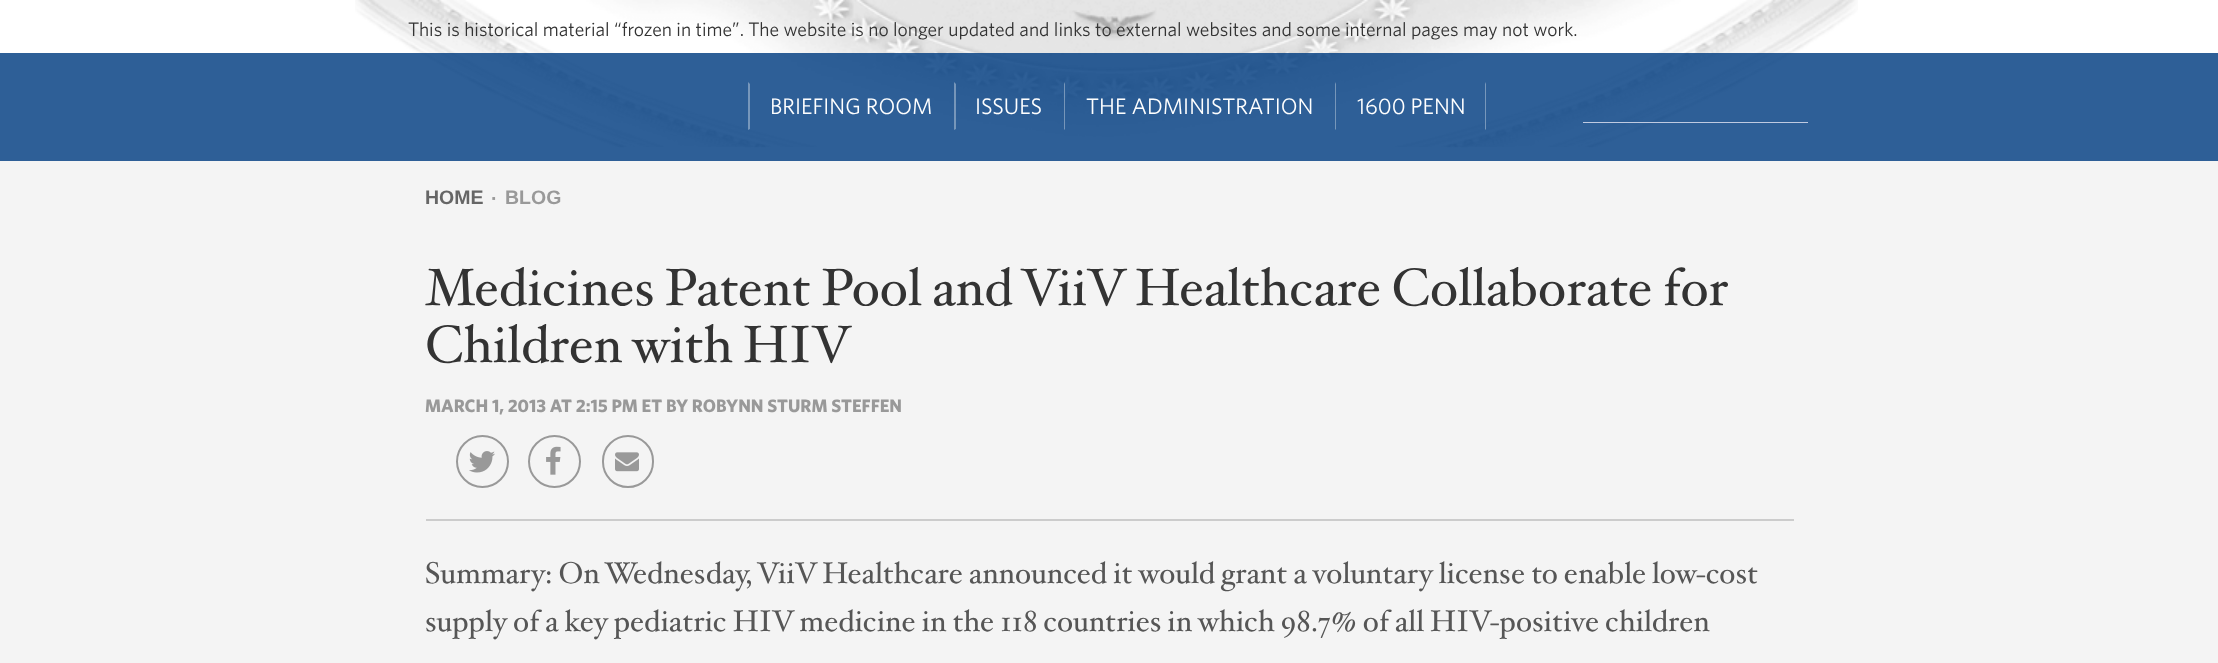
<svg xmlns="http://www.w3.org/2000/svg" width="2218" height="663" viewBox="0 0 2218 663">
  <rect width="100%" height="100%" fill="rgb(244,244,244)"/>
  <rect x="0" y="0" width="2218" height="161" fill="rgb(255,255,255)"/>
  <image x="355" y="0" width="1503" height="148" href="pic1.png"/>
  <text x="408" y="36" font-family="'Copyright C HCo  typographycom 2'" font-size="19.5" font-weight="300" fill="rgb(51,51,51)">This is historical material “frozen in time”. The website is no longer updated and links to external websites and some internal pages may not work.</text>
  <rect x="0" y="53" width="2218" height="108" fill="rgba(0,60,128,0.82)"/>
  <path d="M748 130V82L750 84V129Z" fill="rgb(119,151,187)"/>
  <text x="770" y="114" font-family="'Copyright C HCo  typographycom 2'" font-size="22.5" font-weight="300" fill="rgb(255,255,255)">BRIEFING ROOM</text>
  <path d="M954 130V82L956 84V129Z" fill="rgba(213,222,233,0.44)"/>
  <text x="975" y="114" font-family="'Copyright C HCo  typographycom 2'" font-size="22.5" font-weight="300" fill="rgb(255,255,255)">ISSUES</text>
  <path d="M1064 130V82L1065 84V129Z" fill="rgba(213,222,233,0.44)"/>
  <text x="1086" y="114" font-family="'Copyright C HCo  typographycom 2'" font-size="22.5" font-weight="300" fill="rgb(255,255,255)">THE ADMINISTRATION</text>
  <path d="M1486 82V130L1485 129V84Z" fill="rgb(119,151,187)"/>
  <path d="M1335 130V82L1336 84V129Z" fill="rgba(213,222,233,0.44)"/>
  <text x="1357" y="114" font-family="'Copyright C HCo  typographycom 2'" font-size="22.5" font-weight="300" fill="rgb(255,255,255)">1600 PENN</text>
  <rect x="1583" y="122" width="225" height="1" fill="rgb(191,202,225)"/>
  <text x="425" y="204" font-family="Liberation Sans" font-size="19.5" font-weight="bold" fill="rgb(102,102,102)">HOME</text>
  <g font-family="Liberation Sans" font-size="19.5" font-weight="bold" fill="rgb(153,153,153)">
    <text x="491" y="205">·</text>
    <text x="505" y="204">BLOG</text>
  </g>
  <g font-family="'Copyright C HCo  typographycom'" font-size="52.5" font-weight="300" fill="rgb(51,51,51)">
    <text>
      <tspan x="425" y="305">Medicines Patent Pool and ViiV Healthcare Collaborate for</tspan>
      <tspan x="425" y="362">Children with HIV</tspan>
    </text>
  </g>
  <text x="425" y="412" font-family="'Copyright C HCo  typographycom'" font-size="18" fill="rgb(153,153,153)">MARCH 1, 2013 AT 2:15 PM ET BY ROBYNN STURM STEFFEN</text>
  <circle cx="482.5" cy="461.5" r="25.5" fill="none" stroke="rgb(153,153,153)" stroke-width="2"/>
  <image x="469" y="451" width="26" height="22" href="pic2.png"/>
  <circle cx="554.5" cy="461.5" r="25.5" fill="none" stroke="rgb(153,153,153)" stroke-width="2"/>
  <image x="546" y="446" width="15" height="29" href="pic3.png"/>
  <rect x="603" y="436" width="50" height="51" rx="25" fill="none" stroke="rgb(153,153,153)" stroke-width="2"/>
  <image x="615" y="452" width="24" height="20" href="pic4.png"/>
  <rect x="426" y="519" width="1368" height="2" fill="rgb(204,204,204)"/>
  <g font-family="'Copyright C HCo  typographycom'" font-size="30" font-weight="300" fill="rgb(86,86,86)">
    <text>
      <tspan x="425" y="583">Summary: On Wednesday, ViiV Healthcare announced it would grant a voluntary license to enable low-cost</tspan>
      <tspan x="425" y="631">supply of a key pediatric HIV medicine in the 118 countries in which 98.7% of all HIV-positive children</tspan>
    </text>
  </g>
</svg>
